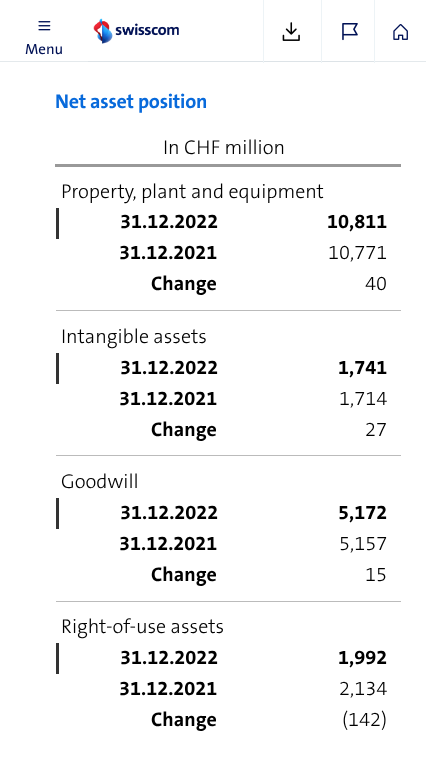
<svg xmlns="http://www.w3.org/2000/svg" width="426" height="758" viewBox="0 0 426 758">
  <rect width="100%" height="100%" fill="rgb(255,255,255)"/>
  <rect x="88" y="61" width="286" height="1" fill="rgb(221,227,231)"/>
  <image x="93" y="18" width="86" height="26" href="pic1.png"/>
  <rect x="0" y="61" width="88" height="1" fill="rgb(228,233,236)"/>
  <image x="38" y="21" width="13" height="10" href="pic2.png"/>
  <text x="25" y="54" font-family="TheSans" font-size="15" font-weight="500" fill="rgb(0,17,85)">Menu</text>
  <rect x="263" y="0" width="1" height="63" fill="rgb(237,243,246)"/>
  <image x="282" y="22" width="18" height="19" href="pic3.png"/>
  <rect x="321" y="0" width="1" height="63" fill="rgb(237,243,246)"/>
  <image x="342" y="23" width="16" height="18" href="pic4.png"/>
  <rect x="375" y="61" width="51" height="1" fill="rgb(228,233,236)"/>
  <rect x="374" y="0" width="1" height="63" fill="rgb(237,243,246)"/>
  <image x="393" y="24" width="15" height="16" href="pic5.png"/>
  <text x="55" y="108" font-family="TheSans" font-size="20" font-weight="bold" letter-spacing="-0.25" fill="rgb(8,106,219)">Net asset position</text>
  <rect x="55" y="164" width="346" height="3" fill="rgb(153,153,153)"/>
  <text x="163" y="154" font-family="TheSans" font-size="20" font-weight="300" fill="rgb(0,0,0)">In CHF million</text>
  <rect x="56" y="310" width="345" height="1" fill="rgb(187,187,187)"/>
  <text x="61" y="198" font-family="TheSans" font-size="20" font-weight="300" fill="rgb(0,0,0)">Property, plant and equipment</text>
  <rect x="56" y="208" width="3" height="31" fill="rgb(51,51,51)"/>
  <g font-family="TheSans" font-size="20" font-weight="bold" fill="rgb(0,0,0)">
    <text x="120" y="228">31.12.2022</text>
    <text x="327" y="228">10,811</text>
    <text x="119" y="259">31.12.2021</text>
  </g>
  <text x="328" y="259" font-family="TheSans" font-size="20" font-weight="300" fill="rgb(0,0,0)">10,771</text>
  <text x="151" y="290" font-family="TheSans" font-size="20" font-weight="bold" fill="rgb(0,0,0)">Change</text>
  <text x="365" y="290" font-family="TheSans" font-size="20" font-weight="300" fill="rgb(0,0,0)">40</text>
  <rect x="56" y="455" width="345" height="1" fill="rgb(187,187,187)"/>
  <text x="61" y="343" font-family="TheSans" font-size="20" font-weight="300" fill="rgb(0,0,0)">Intangible assets</text>
  <rect x="56" y="353" width="3" height="31" fill="rgb(51,51,51)"/>
  <g font-family="TheSans" font-size="20" font-weight="bold" fill="rgb(0,0,0)">
    <text x="120" y="374">31.12.2022</text>
    <text x="338" y="374">1,741</text>
    <text x="119" y="405">31.12.2021</text>
  </g>
  <text x="339" y="405" font-family="TheSans" font-size="20" font-weight="300" fill="rgb(0,0,0)">1,714</text>
  <text x="151" y="436" font-family="TheSans" font-size="20" font-weight="bold" fill="rgb(0,0,0)">Change</text>
  <text x="365" y="436" font-family="TheSans" font-size="20" font-weight="300" fill="rgb(0,0,0)">27</text>
  <rect x="56" y="601" width="345" height="1" fill="rgb(187,187,187)"/>
  <text x="61" y="488" font-family="TheSans" font-size="20" font-weight="300" fill="rgb(0,0,0)">Goodwill</text>
  <rect x="56" y="498" width="3" height="31" fill="rgb(51,51,51)"/>
  <g font-family="TheSans" font-size="20" font-weight="bold" fill="rgb(0,0,0)">
    <text x="120" y="519">31.12.2022</text>
    <text x="338" y="519">5,172</text>
    <text x="119" y="550">31.12.2021</text>
  </g>
  <text x="339" y="550" font-family="TheSans" font-size="20" font-weight="300" fill="rgb(0,0,0)">5,157</text>
  <text x="151" y="581" font-family="TheSans" font-size="20" font-weight="bold" fill="rgb(0,0,0)">Change</text>
  <g font-family="TheSans" font-size="20" font-weight="300" fill="rgb(0,0,0)">
    <text x="365" y="581">15</text>
    <text x="61" y="633">Right-of-use assets</text>
  </g>
  <rect x="56" y="643" width="3" height="31" fill="rgb(51,51,51)"/>
  <g font-family="TheSans" font-size="20" font-weight="bold" fill="rgb(0,0,0)">
    <text x="120" y="664">31.12.2022</text>
    <text x="338" y="664">1,992</text>
    <text x="119" y="695">31.12.2021</text>
  </g>
  <text x="339" y="695" font-family="TheSans" font-size="20" font-weight="300" fill="rgb(0,0,0)">2,134</text>
  <text x="151" y="726" font-family="TheSans" font-size="20" font-weight="bold" fill="rgb(0,0,0)">Change</text>
  <text x="342" y="726" font-family="TheSans" font-size="20" font-weight="300" fill="rgb(0,0,0)">(142)</text>
</svg>
